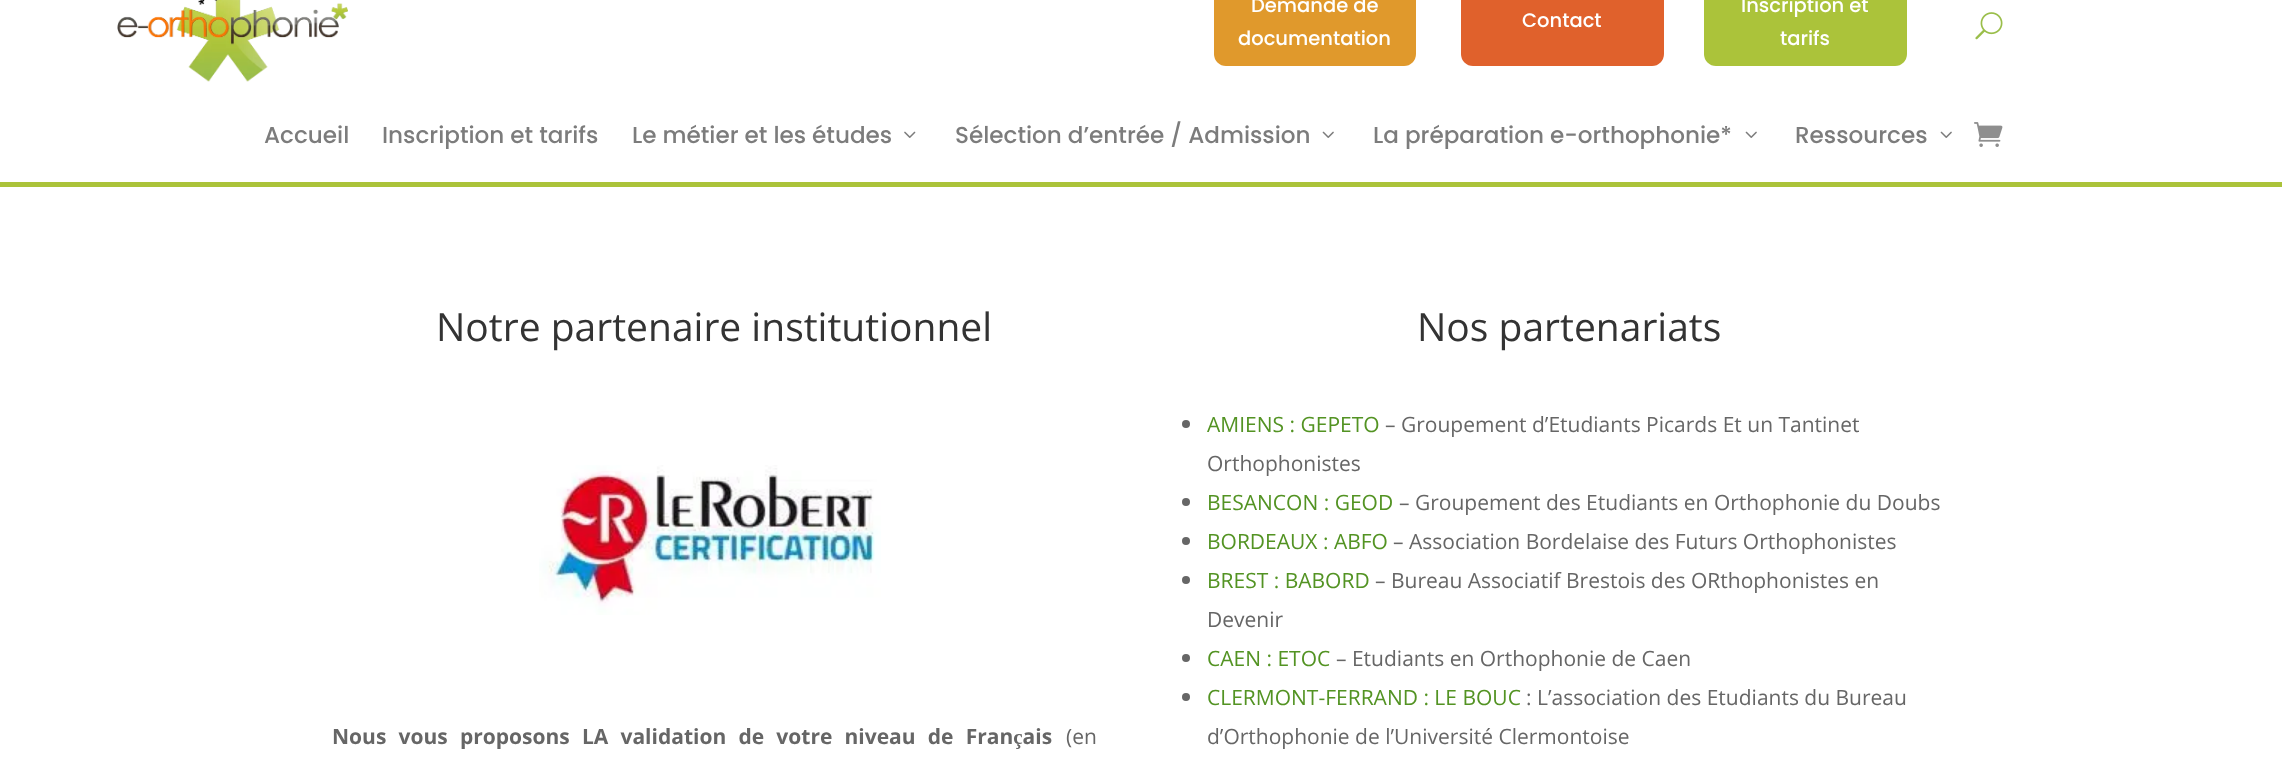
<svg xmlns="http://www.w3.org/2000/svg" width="2282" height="762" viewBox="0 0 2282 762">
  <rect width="100%" height="100%" fill="rgb(255,255,255)"/>
  <rect x="0" y="182" width="2282" height="5" fill="rgb(171,195,58)"/>
  <image x="117" y="0" width="231" height="82" href="pic1.png"/>
  <rect x="1214" y="-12" width="202" height="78" rx="12" fill="rgb(224,153,44)"/>
  <g font-family="Poppins" font-size="19.5" font-weight="500" fill="rgb(255,255,255)">
    <text x="1251" y="12">Demande de</text>
    <text x="1238" y="45">documentation</text>
  </g>
  <rect x="1461" y="-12" width="203" height="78" rx="12" fill="rgb(224,97,44)"/>
  <text x="1522" y="27" font-family="Poppins" font-size="19.5" font-weight="500" fill="rgb(255,255,255)">Contact</text>
  <rect x="1704" y="-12" width="203" height="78" rx="12" fill="rgb(171,195,58)"/>
  <g font-family="Poppins" font-size="19.5" font-weight="500" fill="rgb(255,255,255)">
    <text x="1741" y="12">Inscription et</text>
    <text x="1780" y="45">tarifs</text>
  </g>
  <image x="1975" y="12" width="28" height="28" href="pic2.png"/>
  <g font-family="Poppins" font-size="23.1" font-weight="500" fill="rgb(124,124,124)">
    <text x="264" y="143">Accueil</text>
    <text x="382" y="143">Inscription et tarifs</text>
    <text x="632" y="143">Le métier et les études</text>
  </g>
  <image x="904" y="131" width="12" height="7" href="pic3.png"/>
  <text x="955" y="143" font-family="Poppins" font-size="23.1" font-weight="500" fill="rgb(124,124,124)">Sélection d’entrée / Admission</text>
  <image x="1322" y="131" width="12" height="7" href="pic4.png"/>
  <text x="1373" y="143" font-family="Poppins" font-size="23.1" font-weight="500" fill="rgb(124,124,124)">La préparation e-orthophonie*</text>
  <image x="1745" y="131" width="12" height="7" href="pic4.png"/>
  <text x="1795" y="143" font-family="Poppins" font-size="23.1" font-weight="500" fill="rgb(124,124,124)">Ressources</text>
  <image x="1940" y="131" width="12" height="7" href="pic4.png"/>
  <image x="1974" y="122" width="29" height="25" href="pic5.png"/>
  <text x="436" y="341" font-family="Open Sans" font-size="39" fill="rgb(51,51,51)">Notre partenaire institutionnel</text>
  <image x="539" y="465" width="342" height="150" href="pic6.png"/>
  <text x="332" y="744" word-spacing="6.75" font-family="Open Sans" font-size="21" font-weight="bold" fill="rgb(102,102,102)">Nous vous proposons LA validation de votre niveau de Français</text>
  <text x="1066" y="744" font-family="Open Sans" font-size="21" fill="rgb(102,102,102)">(en</text>
  <text x="1417" y="341" font-family="Open Sans" font-size="39" fill="rgb(51,51,51)">Nos partenariats</text>
  <circle cx="1186" cy="424" r="4" fill="rgb(102,102,102)"/>
  <text x="1207" y="432" font-family="Open Sans" font-size="21" fill="rgb(83,147,35)">AMIENS : GEPETO</text>
  <g font-family="Open Sans" font-size="21" fill="rgb(102,102,102)">
    <text x="1385" y="432">– Groupement d’Etudiants Picards Et un Tantinet</text>
    <text x="1207" y="471">Orthophonistes</text>
  </g>
  <circle cx="1186" cy="502" r="4" fill="rgb(102,102,102)"/>
  <text x="1207" y="510" font-family="Open Sans" font-size="21" fill="rgb(83,147,35)">BESANCON : GEOD</text>
  <text x="1399" y="510" font-family="Open Sans" font-size="21" fill="rgb(102,102,102)">– Groupement des Etudiants en Orthophonie du Doubs</text>
  <circle cx="1186" cy="541" r="4" fill="rgb(102,102,102)"/>
  <text x="1207" y="549" font-family="Open Sans" font-size="21" fill="rgb(83,147,35)">BORDEAUX : ABFO</text>
  <text x="1393" y="549" font-family="Open Sans" font-size="21" fill="rgb(102,102,102)">– Association Bordelaise des Futurs Orthophonistes</text>
  <circle cx="1186" cy="580" r="4" fill="rgb(102,102,102)"/>
  <text x="1207" y="588" font-family="Open Sans" font-size="21" fill="rgb(83,147,35)">BREST : BABORD</text>
  <g font-family="Open Sans" font-size="21" fill="rgb(102,102,102)">
    <text x="1375" y="588">– Bureau Associatif Brestois des ORthophonistes en</text>
    <text x="1207" y="627">Devenir</text>
  </g>
  <circle cx="1186" cy="658" r="4" fill="rgb(102,102,102)"/>
  <text x="1207" y="666" font-family="Open Sans" font-size="21" fill="rgb(83,147,35)">CAEN : ETOC</text>
  <text x="1336" y="666" font-family="Open Sans" font-size="21" fill="rgb(102,102,102)">– Etudiants en Orthophonie de Caen</text>
  <circle cx="1186" cy="697" r="4" fill="rgb(102,102,102)"/>
  <text x="1207" y="705" font-family="Open Sans" font-size="21" fill="rgb(83,147,35)">CLERMONT-FERRAND : LE BOUC</text>
  <g font-family="Open Sans" font-size="21" fill="rgb(102,102,102)">
    <text x="1526" y="705">: L’association des Etudiants du Bureau</text>
    <text x="1207" y="744">d’Orthophonie de l’Université Clermontoise</text>
  </g>
</svg>
